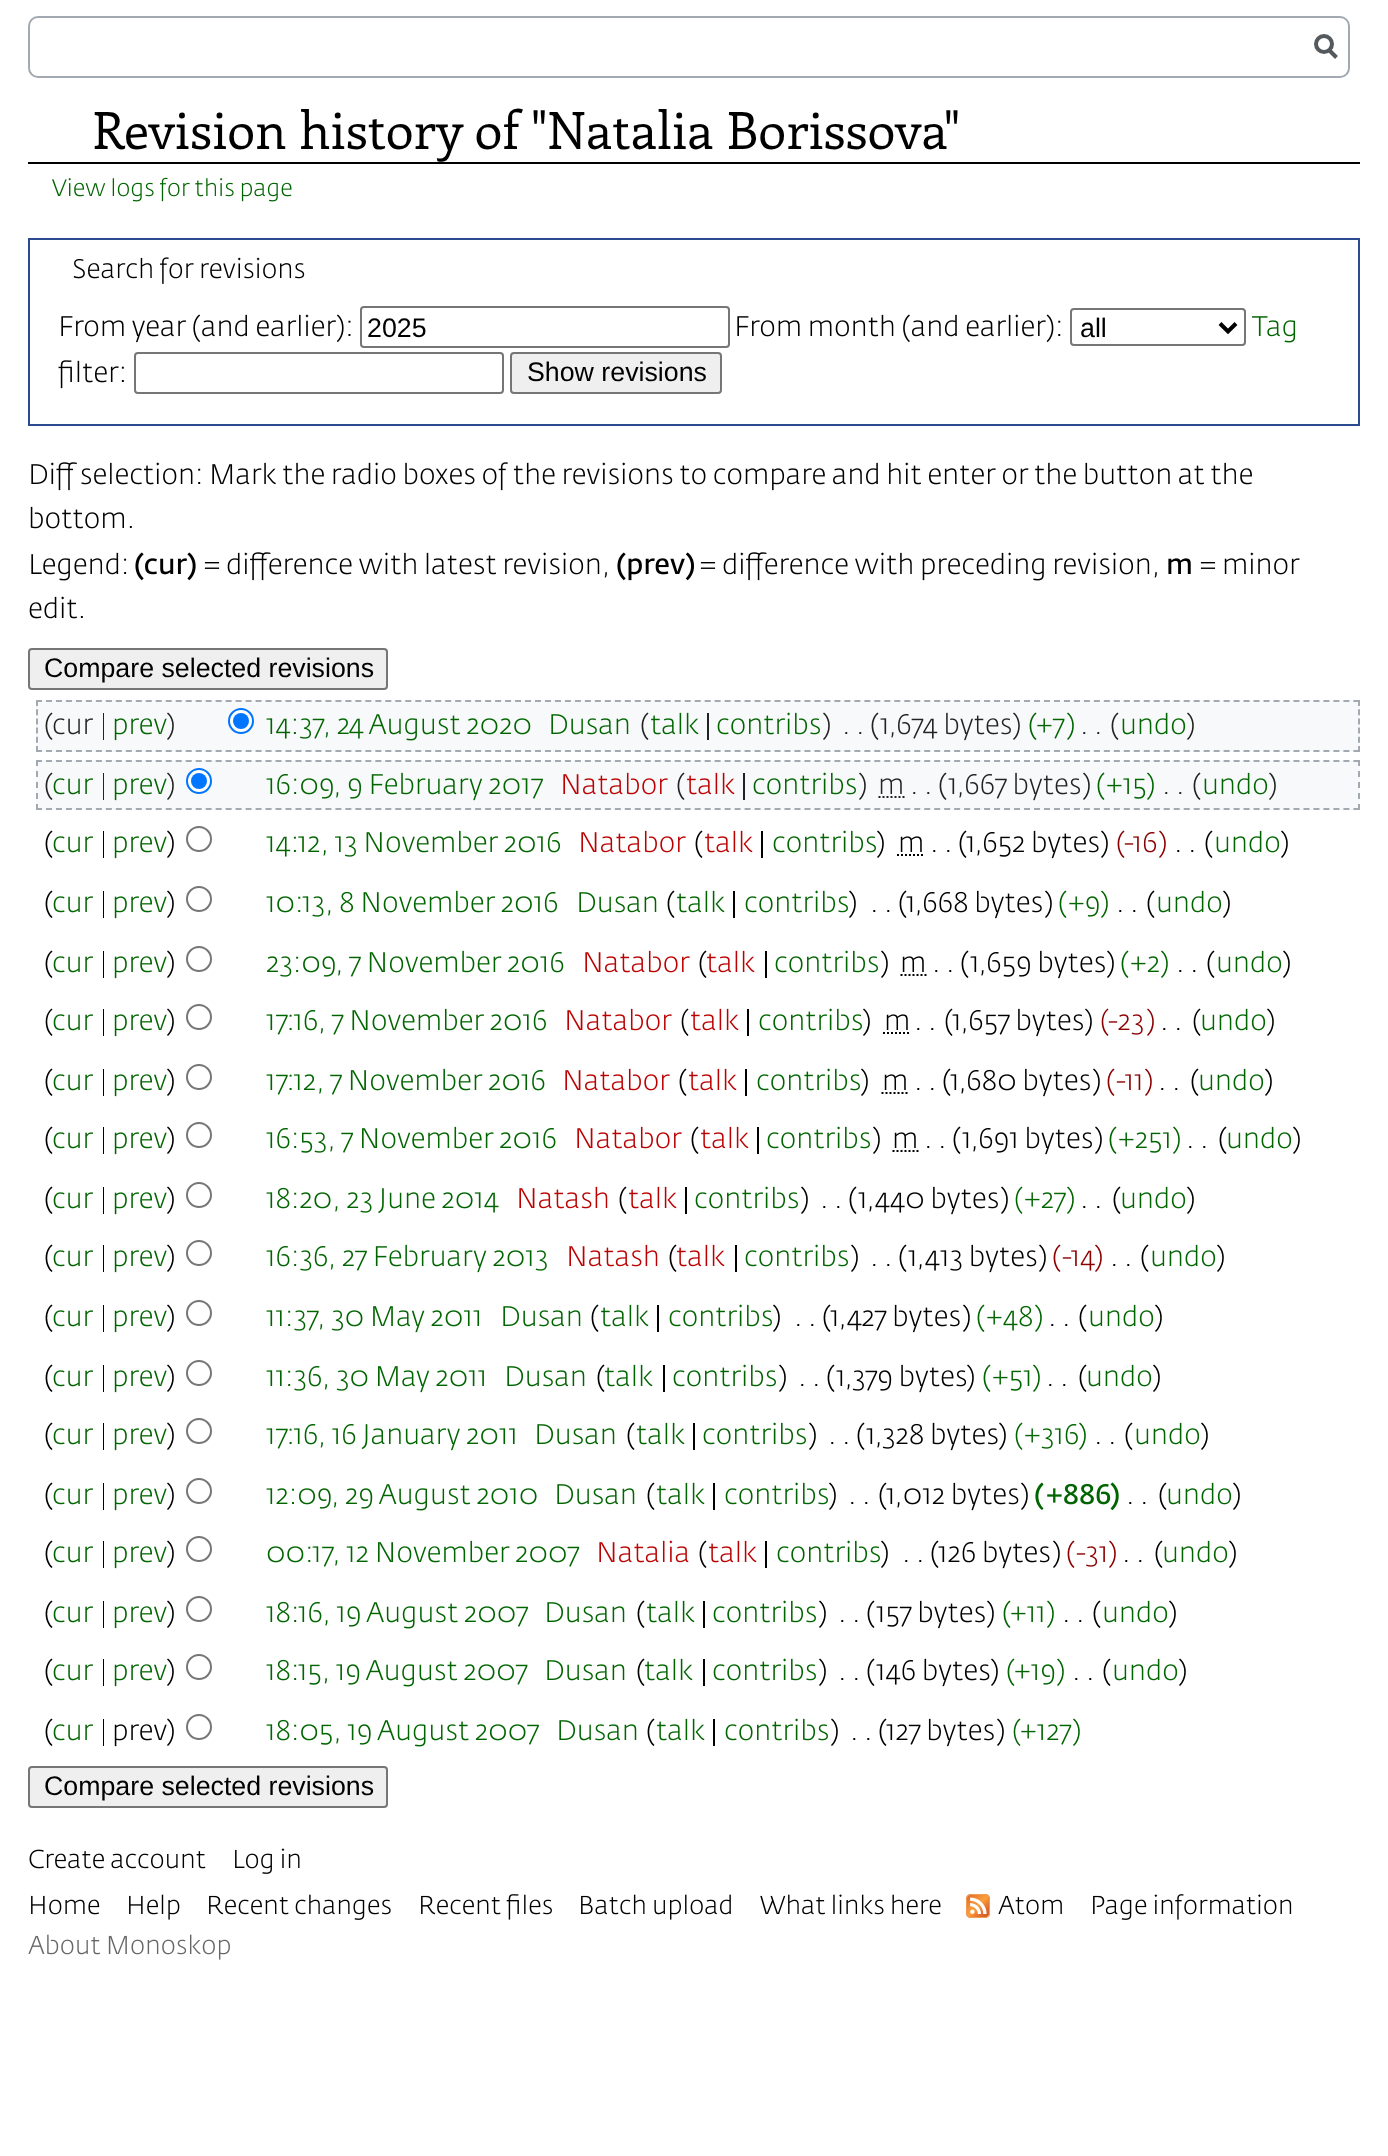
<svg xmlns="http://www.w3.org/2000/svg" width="1388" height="2156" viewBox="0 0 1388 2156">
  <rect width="100%" height="100%" fill="rgb(255,255,255)"/>
  <rect x="29" y="17" width="1320" height="60" rx="9" fill="none" stroke="rgb(162,169,177)" stroke-width="2"/>
  <path d="M1336.5 57.5L1328.5 49.5" fill="none" stroke="rgb(84,89,93)" stroke-width="4"/>
  <circle cx="1324" cy="44" r="8" fill="none" stroke="rgb(84,89,93)" stroke-width="4"/>
  <image x="29" y="1849" width="177" height="20" href="pic1.png"/>
  <image x="235" y="1848" width="65" height="26" href="pic2.png"/>
  <image x="31" y="1895" width="69" height="20" href="pic3.png"/>
  <image x="129" y="1894" width="51" height="26" href="pic4.png"/>
  <image x="209" y="1894" width="182" height="26" href="pic5.png"/>
  <image x="421" y="1894" width="131" height="26" href="pic6.png"/>
  <image x="581" y="1894" width="150" height="26" href="pic7.png"/>
  <image x="760" y="1894" width="181" height="21" href="pic8.png"/>
  <image x="966" y="1894" width="24" height="24" href="pic9.png"/>
  <image x="998" y="1895" width="64" height="20" href="pic10.png"/>
  <image x="1093" y="1894" width="199" height="26" href="pic11.png"/>
  <rect x="28" y="162" width="1332" height="2" fill="rgb(0,0,0)"/>
  <text x="92" y="149" font-family="Enriqueta" font-size="51.25" fill="rgb(0,0,0)">Revision history of "Natalia Borissova"</text>
  <image x="52" y="177" width="240" height="25" href="pic12.png"/>
  <rect x="29" y="239" width="1330" height="186" fill="none" stroke="rgb(42,75,141)" stroke-width="2"/>
  <image x="73" y="257" width="232" height="27" href="pic13.png"/>
  <image x="61" y="314" width="290" height="29" href="pic14.png"/>
  <rect x="361" y="307" width="368" height="40" rx="3" fill="none" stroke="rgb(118,118,118)" stroke-width="2"/>
  <text x="367" y="337" font-family="Liberation Sans" font-size="26.75" fill="rgb(0,0,0)">2025</text>
  <image x="737" y="314" width="324" height="29" href="pic15.png"/>
  <rect x="1071" y="309" width="174" height="36" rx="3" fill="none" stroke="rgb(118,118,118)" stroke-width="2"/>
  <path d="M1220 323.5L1228 331.5L1236 323.5" fill="none" stroke="rgb(0,0,0)" stroke-width="4"/>
  <text x="1080" y="337" font-family="Liberation Sans" font-size="26.75" fill="rgb(0,0,0)">all</text>
  <image x="1252" y="316" width="44" height="27" href="pic16.png"/>
  <image x="58" y="360" width="66" height="29" href="pic17.png"/>
  <rect x="135" y="353" width="368" height="40" rx="3" fill="none" stroke="rgb(118,118,118)" stroke-width="2"/>
  <rect x="511" y="353" width="210" height="40" rx="3" fill="rgb(239,239,239)" stroke="rgb(118,118,118)" stroke-width="2"/>
  <text x="527" y="381" font-family="Liberation Sans" font-size="26.75" fill="rgb(0,0,0)">Show revisions</text>
  <image x="31" y="462" width="1221" height="29" href="pic18.png"/>
  <image x="30" y="506" width="102" height="23" href="pic19.png"/>
  <image x="31" y="552" width="96" height="29" href="pic20.png"/>
  <image x="135" y="552" width="61" height="29" href="pic21.png"/>
  <image x="204" y="552" width="403" height="29" href="pic22.png"/>
  <image x="617" y="552" width="77" height="29" href="pic23.png"/>
  <image x="700" y="552" width="457" height="29" href="pic24.png"/>
  <image x="1168" y="558" width="23" height="16" href="pic25.png"/>
  <image x="1200" y="552" width="100" height="23" href="pic26.png"/>
  <image x="29" y="596" width="54" height="23" href="pic27.png"/>
  <rect x="29" y="649" width="358" height="40" rx="3" fill="rgb(239,239,239)" stroke="rgb(118,118,118)" stroke-width="2"/>
  <text x="44" y="677" font-family="Liberation Sans" font-size="26.75" fill="rgb(0,0,0)">Compare selected revisions</text>
  <rect x="36" y="700" width="1324" height="52" fill="rgb(248,249,250)"/>
  <path d="M36 701H1360" fill="none" stroke="rgb(162,169,177)" stroke-width="2" stroke-dasharray="6 3.98"/>
  <path d="M1359 700V752" fill="none" stroke="rgb(162,169,177)" stroke-width="2" stroke-dasharray="6 3.2"/>
  <path d="M36 751H1360" fill="none" stroke="rgb(162,169,177)" stroke-width="2" stroke-dasharray="6 3.98"/>
  <path d="M37 700V752" fill="none" stroke="rgb(162,169,177)" stroke-width="2" stroke-dasharray="6 3.2"/>
  <path d="M52.5 739L51.5 740C44 733.5 43.5 718.5 51.5 712.5L52.5 713.5C45 719.5 46 733 52.5 739Z" fill="rgb(34,34,34)"/>
  <image x="53" y="718" width="40" height="17" href="pic28.png"/>
  <rect x="103" y="713" width="1" height="27" fill="rgb(34,34,34)"/>
  <image x="114" y="718" width="53" height="23" href="pic29.png"/>
  <path d="M168 740L167 739C173.5 733 174.5 719.5 167 713.5L168 712.5C176 718.5 175.5 733.5 168 740Z" fill="rgb(34,34,34)"/>
  <circle cx="241" cy="721" r="12" fill="rgb(255,255,255)" stroke="rgb(0,117,255)" stroke-width="2"/>
  <circle cx="241" cy="721" r="8" fill="rgb(0,117,255)"/>
  <image x="266" y="714" width="265" height="27" href="pic30.png"/>
  <image x="551" y="714" width="78" height="21" href="pic31.png"/>
  <path d="M648.5 739L647.5 740C640 733.5 639.5 718.5 647.5 712.5L648.5 713.5C641 719.5 642 733 648.5 739Z" fill="rgb(34,34,34)"/>
  <image x="651" y="712" width="48" height="23" href="pic32.png"/>
  <rect x="707" y="713" width="2" height="27" fill="rgb(34,34,34)"/>
  <image x="717" y="712" width="103" height="23" href="pic33.png"/>
  <path d="M824 740L823 739C829.5 733 830.5 719.5 823 713.5L824 712.5C832 718.5 831.5 733.5 824 740Z" fill="rgb(34,34,34)"/>
  <image x="845" y="732" width="17" height="2" href="pic34.png"/>
  <path d="M878.5 739L877.5 740C870 733.5 869.5 718.5 877.5 712.5L878.5 713.5C871 719.5 872 733 878.5 739Z" fill="rgb(34,34,34)"/>
  <image x="880" y="712" width="131" height="29" href="pic35.png"/>
  <path d="M1014 740L1013 739C1019.5 733 1020.5 719.5 1013 713.5L1014 712.5C1022 718.5 1021.5 733.5 1014 740Z" fill="rgb(34,34,34)"/>
  <path d="M1036.5 739L1035.5 740C1028 733.5 1027.5 718.5 1035.5 712.5L1036.5 713.5C1029 719.5 1030 733 1036.5 739Z" fill="rgb(0,100,0)"/>
  <image x="1037" y="718" width="28" height="21" href="pic36.png"/>
  <path d="M1068 740L1067 739C1073.5 733 1074.5 719.5 1067 713.5L1068 712.5C1076 718.5 1075.5 733.5 1068 740Z" fill="rgb(0,100,0)"/>
  <image x="1083" y="732" width="17" height="2" href="pic34.png"/>
  <path d="M1118.5 739L1117.5 740C1110 733.5 1109.5 718.5 1117.5 712.5L1118.5 713.5C1111 719.5 1112 733 1118.5 739Z" fill="rgb(34,34,34)"/>
  <image x="1122" y="712" width="64" height="23" href="pic37.png"/>
  <path d="M1188 740L1187 739C1193.5 733 1194.5 719.5 1187 713.5L1188 712.5C1196 718.5 1195.5 733.5 1188 740Z" fill="rgb(34,34,34)"/>
  <rect x="36" y="760" width="1324" height="50" fill="rgb(248,249,250)"/>
  <path d="M36 761H1360" fill="none" stroke="rgb(162,169,177)" stroke-width="2" stroke-dasharray="6 3.98"/>
  <path d="M1359 760V810" fill="none" stroke="rgb(162,169,177)" stroke-width="2" stroke-dasharray="6 5"/>
  <path d="M36 809H1360" fill="none" stroke="rgb(162,169,177)" stroke-width="2" stroke-dasharray="6 3.98"/>
  <path d="M37 760V810" fill="none" stroke="rgb(162,169,177)" stroke-width="2" stroke-dasharray="6 5"/>
  <path d="M52.5 799L51.5 800C44 793.5 43.5 778.5 51.5 772.5L52.5 773.5C45 779.5 46 793 52.5 799Z" fill="rgb(34,34,34)"/>
  <image x="53" y="778" width="40" height="17" href="pic38.png"/>
  <rect x="103" y="773" width="1" height="27" fill="rgb(34,34,34)"/>
  <image x="114" y="778" width="53" height="23" href="pic29.png"/>
  <path d="M168 800L167 799C173.5 793 174.5 779.5 167 773.5L168 772.5C176 778.5 175.5 793.5 168 800Z" fill="rgb(34,34,34)"/>
  <circle cx="199" cy="781" r="12" fill="rgb(255,255,255)" stroke="rgb(0,117,255)" stroke-width="2"/>
  <circle cx="199" cy="781" r="8" fill="rgb(0,117,255)"/>
  <image x="266" y="772" width="277" height="29" href="pic39.png"/>
  <image x="563" y="772" width="105" height="23" href="pic40.png"/>
  <path d="M684.5 799L683.5 800C676 793.5 675.5 778.5 683.5 772.5L684.5 773.5C677 779.5 678 793 684.5 799Z" fill="rgb(34,34,34)"/>
  <image x="687" y="772" width="48" height="23" href="pic41.png"/>
  <rect x="743" y="773" width="2" height="27" fill="rgb(34,34,34)"/>
  <image x="753" y="772" width="103" height="23" href="pic33.png"/>
  <path d="M860 800L859 799C865.5 793 866.5 779.5 859 773.5L860 772.5C868 778.5 867.5 793.5 860 800Z" fill="rgb(34,34,34)"/>
  <image x="880" y="778" width="22" height="16" href="pic42.png"/>
  <image x="913" y="792" width="17" height="2" href="pic34.png"/>
  <path d="M946.5 799L945.5 800C938 793.5 937.5 778.5 945.5 772.5L946.5 773.5C939 779.5 940 793 946.5 799Z" fill="rgb(34,34,34)"/>
  <image x="948" y="772" width="132" height="29" href="pic43.png"/>
  <path d="M1084 800L1083 799C1089.5 793 1090.5 779.5 1083 773.5L1084 772.5C1092 778.5 1091.5 793.5 1084 800Z" fill="rgb(34,34,34)"/>
  <path d="M1104.5 799L1103.5 800C1096 793.5 1095.5 778.5 1103.5 772.5L1104.5 773.5C1097 779.5 1098 793 1104.5 799Z" fill="rgb(0,100,0)"/>
  <image x="1107" y="778" width="39" height="21" href="pic44.png"/>
  <path d="M1148 800L1147 799C1153.5 793 1154.5 779.5 1147 773.5L1148 772.5C1156 778.5 1155.5 793.5 1148 800Z" fill="rgb(0,100,0)"/>
  <image x="1165" y="792" width="17" height="2" href="pic34.png"/>
  <path d="M1200.5 799L1199.5 800C1192 793.5 1191.5 778.5 1199.5 772.5L1200.5 773.5C1193 779.5 1194 793 1200.5 799Z" fill="rgb(34,34,34)"/>
  <image x="1204" y="772" width="64" height="23" href="pic37.png"/>
  <path d="M1270 800L1269 799C1275.5 793 1276.5 779.5 1269 773.5L1270 772.5C1278 778.5 1277.5 793.5 1270 800Z" fill="rgb(34,34,34)"/>
  <path d="M878.5 797H905" fill="none" stroke="rgb(34,34,34)" stroke-width="2" stroke-dasharray="2 2"/>
  <path d="M52.5 857L51.5 858C44 851.5 43.5 836.5 51.5 830.5L52.5 831.5C45 837.5 46 851 52.5 857Z" fill="rgb(0,0,0)"/>
  <image x="53" y="836" width="40" height="17" href="pic45.png"/>
  <rect x="103" y="831" width="1" height="27" fill="rgb(0,0,0)"/>
  <image x="114" y="836" width="53" height="23" href="pic46.png"/>
  <path d="M168 858L167 857C173.5 851 174.5 837.5 167 831.5L168 830.5C176 836.5 175.5 851.5 168 858Z" fill="rgb(0,0,0)"/>
  <circle cx="199" cy="839" r="12" fill="none" stroke="rgb(118,118,118)" stroke-width="2"/>
  <image x="266" y="830" width="294" height="27" href="pic47.png"/>
  <image x="581" y="830" width="105" height="23" href="pic48.png"/>
  <path d="M702.5 857L701.5 858C694 851.5 693.5 836.5 701.5 830.5L702.5 831.5C695 837.5 696 851 702.5 857Z" fill="rgb(0,0,0)"/>
  <image x="705" y="830" width="48" height="23" href="pic49.png"/>
  <rect x="761" y="831" width="2" height="27" fill="rgb(0,0,0)"/>
  <image x="773" y="830" width="103" height="23" href="pic50.png"/>
  <path d="M878 858L877 857C883.5 851 884.5 837.5 877 831.5L878 830.5C886 836.5 885.5 851.5 878 858Z" fill="rgb(0,0,0)"/>
  <image x="900" y="836" width="22" height="16" href="pic51.png"/>
  <image x="933" y="850" width="17" height="2" href="pic52.png"/>
  <path d="M966.5 857L965.5 858C958 851.5 957.5 836.5 965.5 830.5L966.5 831.5C959 837.5 960 851 966.5 857Z" fill="rgb(0,0,0)"/>
  <image x="966" y="830" width="133" height="29" href="pic53.png"/>
  <path d="M1102 858L1101 857C1107.5 851 1108.5 837.5 1101 831.5L1102 830.5C1110 836.5 1109.5 851.5 1102 858Z" fill="rgb(0,0,0)"/>
  <path d="M1124.5 857L1123.5 858C1116 851.5 1115.5 836.5 1123.5 830.5L1124.5 831.5C1117 837.5 1118 851 1124.5 857Z" fill="rgb(139,0,0)"/>
  <image x="1124" y="832" width="32" height="21" href="pic54.png"/>
  <path d="M1160 858L1159 857C1165.5 851 1166.5 837.5 1159 831.5L1160 830.5C1168 836.5 1167.5 851.5 1160 858Z" fill="rgb(139,0,0)"/>
  <image x="1177" y="850" width="17" height="2" href="pic52.png"/>
  <path d="M1212.5 857L1211.5 858C1204 851.5 1203.5 836.5 1211.5 830.5L1212.5 831.5C1205 837.5 1206 851 1212.5 857Z" fill="rgb(0,0,0)"/>
  <image x="1216" y="830" width="64" height="23" href="pic55.png"/>
  <path d="M1282 858L1281 857C1287.5 851 1288.5 837.5 1281 831.5L1282 830.5C1290 836.5 1289.5 851.5 1282 858Z" fill="rgb(0,0,0)"/>
  <path d="M897 855H923.5" fill="none" stroke="rgb(0,0,0)" stroke-width="2" stroke-dasharray="2 2"/>
  <path d="M52.5 917L51.5 918C44 911.5 43.5 896.5 51.5 890.5L52.5 891.5C45 897.5 46 911 52.5 917Z" fill="rgb(0,0,0)"/>
  <image x="53" y="896" width="40" height="17" href="pic45.png"/>
  <rect x="103" y="891" width="1" height="27" fill="rgb(0,0,0)"/>
  <image x="114" y="896" width="53" height="23" href="pic46.png"/>
  <path d="M168 918L167 917C173.5 911 174.5 897.5 167 891.5L168 890.5C176 896.5 175.5 911.5 168 918Z" fill="rgb(0,0,0)"/>
  <circle cx="199" cy="899" r="12" fill="none" stroke="rgb(118,118,118)" stroke-width="2"/>
  <image x="266" y="890" width="291" height="27" href="pic56.png"/>
  <image x="579" y="892" width="78" height="21" href="pic57.png"/>
  <path d="M674.5 917L673.5 918C666 911.5 665.5 896.5 673.5 890.5L674.5 891.5C667 897.5 668 911 674.5 917Z" fill="rgb(0,0,0)"/>
  <image x="677" y="890" width="48" height="23" href="pic58.png"/>
  <rect x="733" y="891" width="2" height="27" fill="rgb(0,0,0)"/>
  <image x="745" y="890" width="103" height="23" href="pic50.png"/>
  <path d="M850 918L849 917C855.5 911 856.5 897.5 849 891.5L850 890.5C858 896.5 857.5 911.5 850 918Z" fill="rgb(0,0,0)"/>
  <image x="873" y="910" width="17" height="2" href="pic52.png"/>
  <path d="M906.5 917L905.5 918C898 911.5 897.5 896.5 905.5 890.5L906.5 891.5C899 897.5 900 911 906.5 917Z" fill="rgb(0,0,0)"/>
  <image x="906" y="890" width="136" height="29" href="pic59.png"/>
  <path d="M1046 918L1045 917C1051.5 911 1052.5 897.5 1045 891.5L1046 890.5C1054 896.5 1053.5 911.5 1046 918Z" fill="rgb(0,0,0)"/>
  <path d="M1066.5 917L1065.5 918C1058 911.5 1057.5 896.5 1065.5 890.5L1066.5 891.5C1059 897.5 1060 911 1066.5 917Z" fill="rgb(0,100,0)"/>
  <image x="1069" y="896" width="30" height="21" href="pic60.png"/>
  <path d="M1102 918L1101 917C1107.5 911 1108.5 897.5 1101 891.5L1102 890.5C1110 896.5 1109.5 911.5 1102 918Z" fill="rgb(0,100,0)"/>
  <image x="1119" y="910" width="17" height="2" href="pic52.png"/>
  <path d="M1154.5 917L1153.5 918C1146 911.5 1145.5 896.5 1153.5 890.5L1154.5 891.5C1147 897.5 1148 911 1154.5 917Z" fill="rgb(0,0,0)"/>
  <image x="1158" y="890" width="64" height="23" href="pic55.png"/>
  <path d="M1224 918L1223 917C1229.5 911 1230.5 897.5 1223 891.5L1224 890.5C1232 896.5 1231.5 911.5 1224 918Z" fill="rgb(0,0,0)"/>
  <path d="M52.5 977L51.5 978C44 971.5 43.5 956.5 51.5 950.5L52.5 951.5C45 957.5 46 971 52.5 977Z" fill="rgb(0,0,0)"/>
  <image x="53" y="956" width="40" height="17" href="pic45.png"/>
  <rect x="103" y="951" width="1" height="27" fill="rgb(0,0,0)"/>
  <image x="114" y="956" width="53" height="23" href="pic46.png"/>
  <path d="M168 978L167 977C173.5 971 174.5 957.5 167 951.5L168 950.5C176 956.5 175.5 971.5 168 978Z" fill="rgb(0,0,0)"/>
  <circle cx="199" cy="959" r="12" fill="none" stroke="rgb(118,118,118)" stroke-width="2"/>
  <image x="267" y="950" width="297" height="27" href="pic61.png"/>
  <image x="585" y="950" width="105" height="23" href="pic48.png"/>
  <path d="M706.5 977L705.5 978C698 971.5 697.5 956.5 705.5 950.5L706.5 951.5C699 957.5 700 971 706.5 977Z" fill="rgb(0,0,0)"/>
  <image x="707" y="950" width="48" height="23" href="pic49.png"/>
  <rect x="765" y="951" width="2" height="27" fill="rgb(0,0,0)"/>
  <image x="775" y="950" width="103" height="23" href="pic50.png"/>
  <path d="M882 978L881 977C887.5 971 888.5 957.5 881 951.5L882 950.5C890 956.5 889.5 971.5 882 978Z" fill="rgb(0,0,0)"/>
  <image x="902" y="956" width="22" height="16" href="pic51.png"/>
  <image x="935" y="970" width="17" height="2" href="pic52.png"/>
  <path d="M968.5 977L967.5 978C960 971.5 959.5 956.5 967.5 950.5L968.5 951.5C961 957.5 962 971 968.5 977Z" fill="rgb(0,0,0)"/>
  <image x="970" y="950" width="135" height="29" href="pic62.png"/>
  <path d="M1108 978L1107 977C1113.5 971 1114.5 957.5 1107 951.5L1108 950.5C1116 956.5 1115.5 971.5 1108 978Z" fill="rgb(0,0,0)"/>
  <path d="M1128.5 977L1127.5 978C1120 971.5 1119.5 956.5 1127.5 950.5L1128.5 951.5C1121 957.5 1122 971 1128.5 977Z" fill="rgb(0,100,0)"/>
  <image x="1131" y="956" width="28" height="16" href="pic63.png"/>
  <path d="M1162 978L1161 977C1167.5 971 1168.5 957.5 1161 951.5L1162 950.5C1170 956.5 1169.5 971.5 1162 978Z" fill="rgb(0,100,0)"/>
  <image x="1179" y="970" width="17" height="2" href="pic52.png"/>
  <path d="M1214.5 977L1213.5 978C1206 971.5 1205.5 956.5 1213.5 950.5L1214.5 951.5C1207 957.5 1208 971 1214.5 977Z" fill="rgb(0,0,0)"/>
  <image x="1218" y="950" width="64" height="23" href="pic55.png"/>
  <path d="M1284 978L1283 977C1289.5 971 1290.5 957.5 1283 951.5L1284 950.5C1292 956.5 1291.5 971.5 1284 978Z" fill="rgb(0,0,0)"/>
  <path d="M900.5 975H926.5" fill="none" stroke="rgb(0,0,0)" stroke-width="2" stroke-dasharray="2 2"/>
  <path d="M52.5 1035L51.5 1036C44 1029.5 43.5 1014.5 51.5 1008.5L52.5 1009.5C45 1015.5 46 1029 52.5 1035Z" fill="rgb(0,0,0)"/>
  <image x="53" y="1014" width="40" height="17" href="pic45.png"/>
  <rect x="103" y="1009" width="1" height="27" fill="rgb(0,0,0)"/>
  <image x="114" y="1014" width="53" height="23" href="pic46.png"/>
  <path d="M168 1036L167 1035C173.5 1029 174.5 1015.5 167 1009.5L168 1008.5C176 1014.5 175.5 1029.5 168 1036Z" fill="rgb(0,0,0)"/>
  <circle cx="199" cy="1017" r="12" fill="none" stroke="rgb(118,118,118)" stroke-width="2"/>
  <image x="266" y="1008" width="280" height="27" href="pic64.png"/>
  <image x="567" y="1008" width="105" height="23" href="pic48.png"/>
  <path d="M688.5 1035L687.5 1036C680 1029.5 679.5 1014.5 687.5 1008.5L688.5 1009.5C681 1015.5 682 1029 688.5 1035Z" fill="rgb(0,0,0)"/>
  <image x="691" y="1008" width="48" height="23" href="pic49.png"/>
  <rect x="747" y="1009" width="2" height="27" fill="rgb(0,0,0)"/>
  <image x="759" y="1008" width="103" height="23" href="pic50.png"/>
  <path d="M864 1036L863 1035C869.5 1029 870.5 1015.5 863 1009.5L864 1008.5C872 1014.5 871.5 1029.5 864 1036Z" fill="rgb(0,0,0)"/>
  <image x="886" y="1014" width="22" height="16" href="pic51.png"/>
  <image x="917" y="1028" width="17" height="2" href="pic52.png"/>
  <path d="M952.5 1035L951.5 1036C944 1029.5 943.5 1014.5 951.5 1008.5L952.5 1009.5C945 1015.5 946 1029 952.5 1035Z" fill="rgb(0,0,0)"/>
  <image x="952" y="1008" width="131" height="29" href="pic65.png"/>
  <path d="M1086 1036L1085 1035C1091.5 1029 1092.5 1015.5 1085 1009.5L1086 1008.5C1094 1014.5 1093.5 1029.5 1086 1036Z" fill="rgb(0,0,0)"/>
  <path d="M1108.5 1035L1107.5 1036C1100 1029.5 1099.5 1014.5 1107.5 1008.5L1108.5 1009.5C1101 1015.5 1102 1029 1108.5 1035Z" fill="rgb(139,0,0)"/>
  <image x="1108" y="1014" width="35" height="21" href="pic66.png"/>
  <path d="M1148 1036L1147 1035C1153.5 1029 1154.5 1015.5 1147 1009.5L1148 1008.5C1156 1014.5 1155.5 1029.5 1148 1036Z" fill="rgb(139,0,0)"/>
  <image x="1163" y="1028" width="17" height="2" href="pic52.png"/>
  <path d="M1200.5 1035L1199.5 1036C1192 1029.5 1191.5 1014.5 1199.5 1008.5L1200.5 1009.5C1193 1015.5 1194 1029 1200.5 1035Z" fill="rgb(0,0,0)"/>
  <image x="1202" y="1008" width="64" height="23" href="pic55.png"/>
  <path d="M1268 1036L1267 1035C1273.5 1029 1274.5 1015.5 1267 1009.5L1268 1008.5C1276 1014.5 1275.5 1029.5 1268 1036Z" fill="rgb(0,0,0)"/>
  <path d="M883 1033H909.5" fill="none" stroke="rgb(0,0,0)" stroke-width="2" stroke-dasharray="2 2"/>
  <path d="M52.5 1095L51.5 1096C44 1089.5 43.5 1074.5 51.5 1068.5L52.5 1069.5C45 1075.5 46 1089 52.5 1095Z" fill="rgb(0,0,0)"/>
  <image x="53" y="1074" width="40" height="17" href="pic45.png"/>
  <rect x="103" y="1069" width="1" height="27" fill="rgb(0,0,0)"/>
  <image x="114" y="1074" width="53" height="23" href="pic46.png"/>
  <path d="M168 1096L167 1095C173.5 1089 174.5 1075.5 167 1069.5L168 1068.5C176 1074.5 175.5 1089.5 168 1096Z" fill="rgb(0,0,0)"/>
  <circle cx="199" cy="1077" r="12" fill="none" stroke="rgb(118,118,118)" stroke-width="2"/>
  <image x="266" y="1068" width="279" height="27" href="pic67.png"/>
  <image x="565" y="1068" width="105" height="23" href="pic48.png"/>
  <path d="M686.5 1095L685.5 1096C678 1089.5 677.5 1074.5 685.5 1068.5L686.5 1069.5C679 1075.5 680 1089 686.5 1095Z" fill="rgb(0,0,0)"/>
  <image x="689" y="1068" width="48" height="23" href="pic49.png"/>
  <rect x="745" y="1069" width="2" height="27" fill="rgb(0,0,0)"/>
  <image x="757" y="1068" width="103" height="23" href="pic50.png"/>
  <path d="M862 1096L861 1095C867.5 1089 868.5 1075.5 861 1069.5L862 1068.5C870 1074.5 869.5 1089.5 862 1096Z" fill="rgb(0,0,0)"/>
  <image x="884" y="1074" width="22" height="16" href="pic51.png"/>
  <image x="917" y="1088" width="17" height="2" href="pic52.png"/>
  <path d="M950.5 1095L949.5 1096C942 1089.5 941.5 1074.5 949.5 1068.5L950.5 1069.5C943 1075.5 944 1089 950.5 1095Z" fill="rgb(0,0,0)"/>
  <image x="950" y="1068" width="140" height="29" href="pic68.png"/>
  <path d="M1094 1096L1093 1095C1099.5 1089 1100.5 1075.5 1093 1069.5L1094 1068.5C1102 1074.5 1101.5 1089.5 1094 1096Z" fill="rgb(0,0,0)"/>
  <path d="M1114.5 1095L1113.5 1096C1106 1089.5 1105.5 1074.5 1113.5 1068.5L1114.5 1069.5C1107 1075.5 1108 1089 1114.5 1095Z" fill="rgb(139,0,0)"/>
  <image x="1116" y="1074" width="25" height="16" href="pic69.png"/>
  <path d="M1146 1096L1145 1095C1151.5 1089 1152.5 1075.5 1145 1069.5L1146 1068.5C1154 1074.5 1153.5 1089.5 1146 1096Z" fill="rgb(139,0,0)"/>
  <image x="1161" y="1088" width="17" height="2" href="pic52.png"/>
  <path d="M1198.5 1095L1197.5 1096C1190 1089.5 1189.5 1074.5 1197.5 1068.5L1198.5 1069.5C1191 1075.5 1192 1089 1198.5 1095Z" fill="rgb(0,0,0)"/>
  <image x="1200" y="1068" width="64" height="23" href="pic55.png"/>
  <path d="M1266 1096L1265 1095C1271.5 1089 1272.5 1075.5 1265 1069.5L1266 1068.5C1274 1074.5 1273.5 1089.5 1266 1096Z" fill="rgb(0,0,0)"/>
  <path d="M881.5 1093H908" fill="none" stroke="rgb(0,0,0)" stroke-width="2" stroke-dasharray="2 2"/>
  <path d="M52.5 1153L51.5 1154C44 1147.5 43.5 1132.5 51.5 1126.5L52.5 1127.5C45 1133.5 46 1147 52.5 1153Z" fill="rgb(0,0,0)"/>
  <image x="53" y="1132" width="40" height="17" href="pic45.png"/>
  <rect x="103" y="1127" width="1" height="27" fill="rgb(0,0,0)"/>
  <image x="114" y="1132" width="53" height="23" href="pic46.png"/>
  <path d="M168 1154L167 1153C173.5 1147 174.5 1133.5 167 1127.5L168 1126.5C176 1132.5 175.5 1147.5 168 1154Z" fill="rgb(0,0,0)"/>
  <circle cx="199" cy="1135" r="12" fill="none" stroke="rgb(118,118,118)" stroke-width="2"/>
  <image x="266" y="1126" width="290" height="27" href="pic70.png"/>
  <image x="577" y="1126" width="105" height="23" href="pic48.png"/>
  <path d="M698.5 1153L697.5 1154C690 1147.5 689.5 1132.5 697.5 1126.5L698.5 1127.5C691 1133.5 692 1147 698.5 1153Z" fill="rgb(0,0,0)"/>
  <image x="701" y="1126" width="48" height="23" href="pic49.png"/>
  <rect x="757" y="1127" width="2" height="27" fill="rgb(0,0,0)"/>
  <image x="767" y="1126" width="103" height="23" href="pic50.png"/>
  <path d="M874 1154L873 1153C879.5 1147 880.5 1133.5 873 1127.5L874 1126.5C882 1132.5 881.5 1147.5 874 1154Z" fill="rgb(0,0,0)"/>
  <image x="894" y="1132" width="22" height="16" href="pic51.png"/>
  <image x="927" y="1146" width="17" height="2" href="pic52.png"/>
  <path d="M960.5 1153L959.5 1154C952 1147.5 951.5 1132.5 959.5 1126.5L960.5 1127.5C953 1133.5 954 1147 960.5 1153Z" fill="rgb(0,0,0)"/>
  <image x="962" y="1126" width="130" height="29" href="pic71.png"/>
  <path d="M1096 1154L1095 1153C1101.5 1147 1102.5 1133.5 1095 1127.5L1096 1126.5C1104 1132.5 1103.5 1147.5 1096 1154Z" fill="rgb(0,0,0)"/>
  <path d="M1116.5 1153L1115.5 1154C1108 1147.5 1107.5 1132.5 1115.5 1126.5L1116.5 1127.5C1109 1133.5 1110 1147 1116.5 1153Z" fill="rgb(0,100,0)"/>
  <image x="1119" y="1132" width="50" height="21" href="pic72.png"/>
  <path d="M1174 1154L1173 1153C1179.5 1147 1180.5 1133.5 1173 1127.5L1174 1126.5C1182 1132.5 1181.5 1147.5 1174 1154Z" fill="rgb(0,100,0)"/>
  <image x="1189" y="1146" width="17" height="2" href="pic52.png"/>
  <path d="M1226.5 1153L1225.5 1154C1218 1147.5 1217.5 1132.5 1225.5 1126.5L1226.5 1127.5C1219 1133.5 1220 1147 1226.5 1153Z" fill="rgb(0,0,0)"/>
  <image x="1228" y="1126" width="64" height="23" href="pic55.png"/>
  <path d="M1294 1154L1293 1153C1299.5 1147 1300.5 1133.5 1293 1127.5L1294 1126.5C1302 1132.5 1301.5 1147.5 1294 1154Z" fill="rgb(0,0,0)"/>
  <path d="M892.5 1151H919" fill="none" stroke="rgb(0,0,0)" stroke-width="2" stroke-dasharray="2 2"/>
  <path d="M52.5 1213L51.5 1214C44 1207.5 43.5 1192.5 51.5 1186.5L52.5 1187.5C45 1193.5 46 1207 52.5 1213Z" fill="rgb(0,0,0)"/>
  <image x="53" y="1192" width="40" height="17" href="pic45.png"/>
  <rect x="103" y="1187" width="1" height="27" fill="rgb(0,0,0)"/>
  <image x="114" y="1192" width="53" height="23" href="pic46.png"/>
  <path d="M168 1214L167 1213C173.5 1207 174.5 1193.5 167 1187.5L168 1186.5C176 1192.5 175.5 1207.5 168 1214Z" fill="rgb(0,0,0)"/>
  <circle cx="199" cy="1195" r="12" fill="none" stroke="rgb(118,118,118)" stroke-width="2"/>
  <image x="266" y="1187" width="233" height="27" href="pic73.png"/>
  <image x="519" y="1186" width="89" height="23" href="pic74.png"/>
  <path d="M626.5 1213L625.5 1214C618 1207.5 617.5 1192.5 625.5 1186.5L626.5 1187.5C619 1193.5 620 1207 626.5 1213Z" fill="rgb(0,0,0)"/>
  <image x="629" y="1186" width="48" height="23" href="pic49.png"/>
  <rect x="685" y="1187" width="2" height="27" fill="rgb(0,0,0)"/>
  <image x="695" y="1186" width="103" height="23" href="pic50.png"/>
  <path d="M802 1214L801 1213C807.5 1207 808.5 1193.5 801 1187.5L802 1186.5C810 1192.5 809.5 1207.5 802 1214Z" fill="rgb(0,0,0)"/>
  <image x="823" y="1206" width="17" height="2" href="pic52.png"/>
  <path d="M856.5 1213L855.5 1214C848 1207.5 847.5 1192.5 855.5 1186.5L856.5 1187.5C849 1193.5 850 1207 856.5 1213Z" fill="rgb(0,0,0)"/>
  <image x="858" y="1186" width="140" height="29" href="pic75.png"/>
  <path d="M1002 1214L1001 1213C1007.5 1207 1008.5 1193.5 1001 1187.5L1002 1186.5C1010 1192.5 1009.5 1207.5 1002 1214Z" fill="rgb(0,0,0)"/>
  <path d="M1022.5 1213L1021.5 1214C1014 1207.5 1013.5 1192.5 1021.5 1186.5L1022.5 1187.5C1015 1193.5 1016 1207 1022.5 1213Z" fill="rgb(0,100,0)"/>
  <image x="1025" y="1192" width="41" height="21" href="pic76.png"/>
  <path d="M1068 1214L1067 1213C1073.5 1207 1074.5 1193.5 1067 1187.5L1068 1186.5C1076 1192.5 1075.5 1207.5 1068 1214Z" fill="rgb(0,100,0)"/>
  <image x="1083" y="1206" width="17" height="2" href="pic52.png"/>
  <path d="M1120.5 1213L1119.5 1214C1112 1207.5 1111.5 1192.5 1119.5 1186.5L1120.5 1187.5C1113 1193.5 1114 1207 1120.5 1213Z" fill="rgb(0,0,0)"/>
  <image x="1122" y="1186" width="64" height="23" href="pic55.png"/>
  <path d="M1188 1214L1187 1213C1193.5 1207 1194.5 1193.5 1187 1187.5L1188 1186.5C1196 1192.5 1195.5 1207.5 1188 1214Z" fill="rgb(0,0,0)"/>
  <path d="M52.5 1271L51.5 1272C44 1265.5 43.5 1250.5 51.5 1244.5L52.5 1245.5C45 1251.5 46 1265 52.5 1271Z" fill="rgb(0,0,0)"/>
  <image x="53" y="1250" width="40" height="17" href="pic45.png"/>
  <rect x="103" y="1245" width="1" height="27" fill="rgb(0,0,0)"/>
  <image x="114" y="1250" width="53" height="23" href="pic46.png"/>
  <path d="M168 1272L167 1271C173.5 1265 174.5 1251.5 167 1245.5L168 1244.5C176 1250.5 175.5 1265.5 168 1272Z" fill="rgb(0,0,0)"/>
  <circle cx="199" cy="1253" r="12" fill="none" stroke="rgb(118,118,118)" stroke-width="2"/>
  <image x="266" y="1244" width="281" height="29" href="pic77.png"/>
  <image x="569" y="1244" width="89" height="23" href="pic74.png"/>
  <path d="M676.5 1271L675.5 1272C668 1265.5 667.5 1250.5 675.5 1244.5L676.5 1245.5C669 1251.5 670 1265 676.5 1271Z" fill="rgb(0,0,0)"/>
  <image x="677" y="1244" width="48" height="23" href="pic49.png"/>
  <rect x="735" y="1245" width="2" height="27" fill="rgb(0,0,0)"/>
  <image x="745" y="1244" width="103" height="23" href="pic50.png"/>
  <path d="M852 1272L851 1271C857.5 1265 858.5 1251.5 851 1245.5L852 1244.5C860 1250.5 859.5 1265.5 852 1272Z" fill="rgb(0,0,0)"/>
  <image x="873" y="1264" width="17" height="2" href="pic52.png"/>
  <path d="M906.5 1271L905.5 1272C898 1265.5 897.5 1250.5 905.5 1244.5L906.5 1245.5C899 1251.5 900 1265 906.5 1271Z" fill="rgb(0,0,0)"/>
  <image x="908" y="1244" width="129" height="29" href="pic78.png"/>
  <path d="M1040 1272L1039 1271C1045.5 1265 1046.5 1251.5 1039 1245.5L1040 1244.5C1048 1250.5 1047.5 1265.5 1040 1272Z" fill="rgb(0,0,0)"/>
  <path d="M1060.5 1271L1059.5 1272C1052 1265.5 1051.5 1250.5 1059.5 1244.5L1060.5 1245.5C1053 1251.5 1054 1265 1060.5 1271Z" fill="rgb(139,0,0)"/>
  <image x="1062" y="1250" width="33" height="21" href="pic79.png"/>
  <path d="M1096 1272L1095 1271C1101.5 1265 1102.5 1251.5 1095 1245.5L1096 1244.5C1104 1250.5 1103.5 1265.5 1096 1272Z" fill="rgb(139,0,0)"/>
  <image x="1113" y="1264" width="17" height="2" href="pic52.png"/>
  <path d="M1148.5 1271L1147.5 1272C1140 1265.5 1139.5 1250.5 1147.5 1244.5L1148.5 1245.5C1141 1251.5 1142 1265 1148.5 1271Z" fill="rgb(0,0,0)"/>
  <image x="1152" y="1244" width="64" height="23" href="pic55.png"/>
  <path d="M1218 1272L1217 1271C1223.5 1265 1224.5 1251.5 1217 1245.5L1218 1244.5C1226 1250.5 1225.5 1265.5 1218 1272Z" fill="rgb(0,0,0)"/>
  <path d="M52.5 1331L51.5 1332C44 1325.5 43.5 1310.5 51.5 1304.5L52.5 1305.5C45 1311.5 46 1325 52.5 1331Z" fill="rgb(0,0,0)"/>
  <image x="53" y="1310" width="40" height="17" href="pic45.png"/>
  <rect x="103" y="1305" width="1" height="27" fill="rgb(0,0,0)"/>
  <image x="114" y="1310" width="53" height="23" href="pic46.png"/>
  <path d="M168 1332L167 1331C173.5 1325 174.5 1311.5 167 1305.5L168 1304.5C176 1310.5 175.5 1325.5 168 1332Z" fill="rgb(0,0,0)"/>
  <circle cx="199" cy="1313" r="12" fill="none" stroke="rgb(118,118,118)" stroke-width="2"/>
  <image x="266" y="1306" width="214" height="27" href="pic80.png"/>
  <image x="503" y="1306" width="78" height="21" href="pic57.png"/>
  <path d="M598.5 1331L597.5 1332C590 1325.5 589.5 1310.5 597.5 1304.5L598.5 1305.5C591 1311.5 592 1325 598.5 1331Z" fill="rgb(0,0,0)"/>
  <image x="601" y="1304" width="48" height="23" href="pic58.png"/>
  <rect x="657" y="1305" width="2" height="27" fill="rgb(0,0,0)"/>
  <image x="669" y="1304" width="103" height="23" href="pic50.png"/>
  <path d="M774 1332L773 1331C779.5 1325 780.5 1311.5 773 1305.5L774 1304.5C782 1310.5 781.5 1325.5 774 1332Z" fill="rgb(0,0,0)"/>
  <image x="797" y="1324" width="17" height="2" href="pic52.png"/>
  <path d="M830.5 1331L829.5 1332C822 1325.5 821.5 1310.5 829.5 1304.5L830.5 1305.5C823 1311.5 824 1325 830.5 1331Z" fill="rgb(0,0,0)"/>
  <image x="830" y="1304" width="130" height="29" href="pic81.png"/>
  <path d="M964 1332L963 1331C969.5 1325 970.5 1311.5 963 1305.5L964 1304.5C972 1310.5 971.5 1325.5 964 1332Z" fill="rgb(0,0,0)"/>
  <path d="M984.5 1331L983.5 1332C976 1325.5 975.5 1310.5 983.5 1304.5L984.5 1305.5C977 1311.5 978 1325 984.5 1331Z" fill="rgb(0,100,0)"/>
  <image x="987" y="1305" width="45" height="26" href="pic82.png"/>
  <path d="M1036 1332L1035 1331C1041.5 1325 1042.5 1311.5 1035 1305.5L1036 1304.5C1044 1310.5 1043.5 1325.5 1036 1332Z" fill="rgb(0,100,0)"/>
  <image x="1051" y="1324" width="17" height="2" href="pic52.png"/>
  <path d="M1086.5 1331L1085.5 1332C1078 1325.5 1077.5 1310.5 1085.5 1304.5L1086.5 1305.5C1079 1311.5 1080 1325 1086.5 1331Z" fill="rgb(0,0,0)"/>
  <image x="1090" y="1304" width="64" height="23" href="pic55.png"/>
  <path d="M1156 1332L1155 1331C1161.5 1325 1162.5 1311.5 1155 1305.5L1156 1304.5C1164 1310.5 1163.5 1325.5 1156 1332Z" fill="rgb(0,0,0)"/>
  <path d="M52.5 1391L51.5 1392C44 1385.5 43.5 1370.5 51.5 1364.5L52.5 1365.5C45 1371.5 46 1385 52.5 1391Z" fill="rgb(0,0,0)"/>
  <image x="53" y="1370" width="40" height="17" href="pic45.png"/>
  <rect x="103" y="1365" width="1" height="27" fill="rgb(0,0,0)"/>
  <image x="114" y="1370" width="53" height="23" href="pic46.png"/>
  <path d="M168 1392L167 1391C173.5 1385 174.5 1371.5 167 1365.5L168 1364.5C176 1370.5 175.5 1385.5 168 1392Z" fill="rgb(0,0,0)"/>
  <circle cx="199" cy="1373" r="12" fill="none" stroke="rgb(118,118,118)" stroke-width="2"/>
  <image x="266" y="1366" width="218" height="27" href="pic83.png"/>
  <image x="507" y="1366" width="78" height="21" href="pic57.png"/>
  <path d="M604.5 1391L603.5 1392C596 1385.5 595.5 1370.5 603.5 1364.5L604.5 1365.5C597 1371.5 598 1385 604.5 1391Z" fill="rgb(0,0,0)"/>
  <image x="605" y="1364" width="48" height="23" href="pic58.png"/>
  <rect x="663" y="1365" width="2" height="27" fill="rgb(0,0,0)"/>
  <image x="673" y="1364" width="103" height="23" href="pic50.png"/>
  <path d="M780 1392L779 1391C785.5 1385 786.5 1371.5 779 1365.5L780 1364.5C788 1370.5 787.5 1385.5 780 1392Z" fill="rgb(0,0,0)"/>
  <image x="801" y="1384" width="17" height="2" href="pic52.png"/>
  <path d="M834.5 1391L833.5 1392C826 1385.5 825.5 1370.5 833.5 1364.5L834.5 1365.5C827 1371.5 828 1385 834.5 1391Z" fill="rgb(0,0,0)"/>
  <image x="836" y="1364" width="131" height="29" href="pic84.png"/>
  <path d="M968 1392L967 1391C973.5 1385 974.5 1371.5 967 1365.5L968 1364.5C976 1370.5 975.5 1385.5 968 1392Z" fill="rgb(0,0,0)"/>
  <path d="M990.5 1391L989.5 1392C982 1385.5 981.5 1370.5 989.5 1364.5L990.5 1365.5C983 1371.5 984 1385 990.5 1391Z" fill="rgb(0,100,0)"/>
  <image x="993" y="1370" width="37" height="21" href="pic85.png"/>
  <path d="M1034 1392L1033 1391C1039.5 1385 1040.5 1371.5 1033 1365.5L1034 1364.5C1042 1370.5 1041.5 1385.5 1034 1392Z" fill="rgb(0,100,0)"/>
  <image x="1049" y="1384" width="17" height="2" href="pic52.png"/>
  <path d="M1086.5 1391L1085.5 1392C1078 1385.5 1077.5 1370.5 1085.5 1364.5L1086.5 1365.5C1079 1371.5 1080 1385 1086.5 1391Z" fill="rgb(0,0,0)"/>
  <image x="1088" y="1364" width="64" height="23" href="pic55.png"/>
  <path d="M1154 1392L1153 1391C1159.5 1385 1160.5 1371.5 1153 1365.5L1154 1364.5C1162 1370.5 1161.5 1385.5 1154 1392Z" fill="rgb(0,0,0)"/>
  <path d="M52.5 1449L51.5 1450C44 1443.5 43.5 1428.5 51.5 1422.5L52.5 1423.5C45 1429.5 46 1443 52.5 1449Z" fill="rgb(0,0,0)"/>
  <image x="53" y="1428" width="40" height="17" href="pic45.png"/>
  <rect x="103" y="1423" width="1" height="27" fill="rgb(0,0,0)"/>
  <image x="114" y="1428" width="53" height="23" href="pic46.png"/>
  <path d="M168 1450L167 1449C173.5 1443 174.5 1429.5 167 1423.5L168 1422.5C176 1428.5 175.5 1443.5 168 1450Z" fill="rgb(0,0,0)"/>
  <circle cx="199" cy="1431" r="12" fill="none" stroke="rgb(118,118,118)" stroke-width="2"/>
  <image x="266" y="1424" width="249" height="27" href="pic86.png"/>
  <image x="537" y="1424" width="78" height="21" href="pic57.png"/>
  <path d="M634.5 1449L633.5 1450C626 1443.5 625.5 1428.5 633.5 1422.5L634.5 1423.5C627 1429.5 628 1443 634.5 1449Z" fill="rgb(0,0,0)"/>
  <image x="637" y="1422" width="48" height="23" href="pic58.png"/>
  <rect x="693" y="1423" width="2" height="27" fill="rgb(0,0,0)"/>
  <image x="703" y="1422" width="103" height="23" href="pic50.png"/>
  <path d="M810 1450L809 1449C815.5 1443 816.5 1429.5 809 1423.5L810 1422.5C818 1428.5 817.5 1443.5 810 1450Z" fill="rgb(0,0,0)"/>
  <image x="831" y="1442" width="17" height="2" href="pic52.png"/>
  <path d="M864.5 1449L863.5 1450C856 1443.5 855.5 1428.5 863.5 1422.5L864.5 1423.5C857 1429.5 858 1443 864.5 1449Z" fill="rgb(0,0,0)"/>
  <image x="866" y="1422" width="132" height="29" href="pic87.png"/>
  <path d="M1000 1450L999 1449C1005.5 1443 1006.5 1429.5 999 1423.5L1000 1422.5C1008 1428.5 1007.5 1443.5 1000 1450Z" fill="rgb(0,0,0)"/>
  <path d="M1022.5 1449L1021.5 1450C1014 1443.5 1013.5 1428.5 1021.5 1422.5L1022.5 1423.5C1015 1429.5 1016 1443 1022.5 1449Z" fill="rgb(0,100,0)"/>
  <image x="1025" y="1424" width="53" height="25" href="pic88.png"/>
  <path d="M1080 1450L1079 1449C1085.5 1443 1086.5 1429.5 1079 1423.5L1080 1422.5C1088 1428.5 1087.5 1443.5 1080 1450Z" fill="rgb(0,100,0)"/>
  <image x="1097" y="1442" width="17" height="2" href="pic52.png"/>
  <path d="M1132.5 1449L1131.5 1450C1124 1443.5 1123.5 1428.5 1131.5 1422.5L1132.5 1423.5C1125 1429.5 1126 1443 1132.5 1449Z" fill="rgb(0,0,0)"/>
  <image x="1136" y="1422" width="64" height="23" href="pic55.png"/>
  <path d="M1202 1450L1201 1449C1207.5 1443 1208.5 1429.5 1201 1423.5L1202 1422.5C1210 1428.5 1209.5 1443.5 1202 1450Z" fill="rgb(0,0,0)"/>
  <path d="M52.5 1509L51.5 1510C44 1503.5 43.5 1488.5 51.5 1482.5L52.5 1483.5C45 1489.5 46 1503 52.5 1509Z" fill="rgb(0,0,0)"/>
  <image x="53" y="1488" width="40" height="17" href="pic45.png"/>
  <rect x="103" y="1483" width="1" height="27" fill="rgb(0,0,0)"/>
  <image x="114" y="1488" width="53" height="23" href="pic46.png"/>
  <path d="M168 1510L167 1509C173.5 1503 174.5 1489.5 167 1483.5L168 1482.5C176 1488.5 175.5 1503.5 168 1510Z" fill="rgb(0,0,0)"/>
  <circle cx="199" cy="1491" r="12" fill="none" stroke="rgb(118,118,118)" stroke-width="2"/>
  <image x="266" y="1484" width="271" height="27" href="pic89.png"/>
  <image x="557" y="1484" width="78" height="21" href="pic57.png"/>
  <path d="M654.5 1509L653.5 1510C646 1503.5 645.5 1488.5 653.5 1482.5L654.5 1483.5C647 1489.5 648 1503 654.5 1509Z" fill="rgb(0,0,0)"/>
  <image x="657" y="1482" width="48" height="23" href="pic58.png"/>
  <rect x="713" y="1483" width="2" height="27" fill="rgb(0,0,0)"/>
  <image x="725" y="1482" width="103" height="23" href="pic50.png"/>
  <path d="M830 1510L829 1509C835.5 1503 836.5 1489.5 829 1483.5L830 1482.5C838 1488.5 837.5 1503.5 830 1510Z" fill="rgb(0,0,0)"/>
  <image x="851" y="1502" width="17" height="2" href="pic52.png"/>
  <path d="M886.5 1509L885.5 1510C878 1503.5 877.5 1488.5 885.5 1482.5L886.5 1483.5C879 1489.5 880 1503 886.5 1509Z" fill="rgb(0,0,0)"/>
  <image x="886" y="1482" width="133" height="29" href="pic90.png"/>
  <path d="M1022 1510L1021 1509C1027.5 1503 1028.5 1489.5 1021 1483.5L1022 1482.5C1030 1488.5 1029.5 1503.5 1022 1510Z" fill="rgb(0,0,0)"/>
  <path d="M1042 1510C1033.5 1503.5 1033 1489 1042 1482.5L1043.5 1484.5L1041 1487.5C1036.5 1494 1038 1503 1043.5 1508.5Z" fill="rgb(0,100,0)"/>
  <image x="1047" y="1483" width="64" height="22" href="pic91.png"/>
  <image x="1110" y="1482" width="9" height="29" href="pic92.png"/>
  <image x="1129" y="1502" width="17" height="2" href="pic52.png"/>
  <path d="M1166.5 1509L1165.5 1510C1158 1503.5 1157.5 1488.5 1165.5 1482.5L1166.5 1483.5C1159 1489.5 1160 1503 1166.5 1509Z" fill="rgb(0,0,0)"/>
  <image x="1168" y="1482" width="64" height="23" href="pic55.png"/>
  <path d="M1234 1510L1233 1509C1239.5 1503 1240.5 1489.5 1233 1483.5L1234 1482.5C1242 1488.5 1241.5 1503.5 1234 1510Z" fill="rgb(0,0,0)"/>
  <path d="M52.5 1567L51.5 1568C44 1561.5 43.5 1546.5 51.5 1540.5L52.5 1541.5C45 1547.5 46 1561 52.5 1567Z" fill="rgb(0,0,0)"/>
  <image x="53" y="1546" width="40" height="17" href="pic45.png"/>
  <rect x="103" y="1541" width="1" height="27" fill="rgb(0,0,0)"/>
  <image x="114" y="1546" width="53" height="23" href="pic46.png"/>
  <path d="M168 1568L167 1567C173.5 1561 174.5 1547.5 167 1541.5L168 1540.5C176 1546.5 175.5 1561.5 168 1568Z" fill="rgb(0,0,0)"/>
  <circle cx="199" cy="1549" r="12" fill="none" stroke="rgb(118,118,118)" stroke-width="2"/>
  <image x="267" y="1540" width="313" height="27" href="pic93.png"/>
  <image x="599" y="1540" width="90" height="23" href="pic94.png"/>
  <path d="M706.5 1567L705.5 1568C698 1561.5 697.5 1546.5 705.5 1540.5L706.5 1541.5C699 1547.5 700 1561 706.5 1567Z" fill="rgb(0,0,0)"/>
  <image x="709" y="1540" width="48" height="23" href="pic49.png"/>
  <rect x="765" y="1541" width="2" height="27" fill="rgb(0,0,0)"/>
  <image x="777" y="1540" width="103" height="23" href="pic50.png"/>
  <path d="M882 1568L881 1567C887.5 1561 888.5 1547.5 881 1541.5L882 1540.5C890 1546.5 889.5 1561.5 882 1568Z" fill="rgb(0,0,0)"/>
  <image x="905" y="1560" width="17" height="2" href="pic52.png"/>
  <path d="M938.5 1567L937.5 1568C930 1561.5 929.5 1546.5 937.5 1540.5L938.5 1541.5C931 1547.5 932 1561 938.5 1567Z" fill="rgb(0,0,0)"/>
  <image x="938" y="1540" width="112" height="29" href="pic95.png"/>
  <path d="M1054 1568L1053 1567C1059.5 1561 1060.5 1547.5 1053 1541.5L1054 1540.5C1062 1546.5 1061.5 1561.5 1054 1568Z" fill="rgb(0,0,0)"/>
  <path d="M1074.5 1567L1073.5 1568C1066 1561.5 1065.5 1546.5 1073.5 1540.5L1074.5 1541.5C1067 1547.5 1068 1561 1074.5 1567Z" fill="rgb(139,0,0)"/>
  <image x="1076" y="1546" width="29" height="21" href="pic96.png"/>
  <path d="M1110 1568L1109 1567C1115.5 1561 1116.5 1547.5 1109 1541.5L1110 1540.5C1118 1546.5 1117.5 1561.5 1110 1568Z" fill="rgb(139,0,0)"/>
  <image x="1125" y="1560" width="17" height="2" href="pic52.png"/>
  <path d="M1162.5 1567L1161.5 1568C1154 1561.5 1153.5 1546.5 1161.5 1540.5L1162.5 1541.5C1155 1547.5 1156 1561 1162.5 1567Z" fill="rgb(0,0,0)"/>
  <image x="1164" y="1540" width="64" height="23" href="pic55.png"/>
  <path d="M1230 1568L1229 1567C1235.5 1561 1236.5 1547.5 1229 1541.5L1230 1540.5C1238 1546.5 1237.5 1561.5 1230 1568Z" fill="rgb(0,0,0)"/>
  <path d="M52.5 1627L51.5 1628C44 1621.5 43.5 1606.5 51.5 1600.5L52.5 1601.5C45 1607.5 46 1621 52.5 1627Z" fill="rgb(0,0,0)"/>
  <image x="53" y="1606" width="40" height="17" href="pic45.png"/>
  <rect x="103" y="1601" width="1" height="27" fill="rgb(0,0,0)"/>
  <image x="114" y="1606" width="53" height="23" href="pic46.png"/>
  <path d="M168 1628L167 1627C173.5 1621 174.5 1607.5 167 1601.5L168 1600.5C176 1606.5 175.5 1621.5 168 1628Z" fill="rgb(0,0,0)"/>
  <circle cx="199" cy="1609" r="12" fill="none" stroke="rgb(118,118,118)" stroke-width="2"/>
  <image x="266" y="1601" width="262" height="28" href="pic97.png"/>
  <image x="547" y="1602" width="78" height="21" href="pic57.png"/>
  <path d="M644.5 1627L643.5 1628C636 1621.5 635.5 1606.5 643.5 1600.5L644.5 1601.5C637 1607.5 638 1621 644.5 1627Z" fill="rgb(0,0,0)"/>
  <image x="647" y="1600" width="48" height="23" href="pic58.png"/>
  <rect x="703" y="1601" width="2" height="27" fill="rgb(0,0,0)"/>
  <image x="713" y="1600" width="103" height="23" href="pic50.png"/>
  <path d="M820 1628L819 1627C825.5 1621 826.5 1607.5 819 1601.5L820 1600.5C828 1606.5 827.5 1621.5 820 1628Z" fill="rgb(0,0,0)"/>
  <image x="841" y="1620" width="17" height="2" href="pic52.png"/>
  <path d="M874.5 1627L873.5 1628C866 1621.5 865.5 1606.5 873.5 1600.5L874.5 1601.5C867 1607.5 868 1621 874.5 1627Z" fill="rgb(0,0,0)"/>
  <image x="876" y="1600" width="109" height="29" href="pic98.png"/>
  <path d="M988 1628L987 1627C993.5 1621 994.5 1607.5 987 1601.5L988 1600.5C996 1606.5 995.5 1621.5 988 1628Z" fill="rgb(0,0,0)"/>
  <path d="M1010.5 1627L1009.5 1628C1002 1621.5 1001.5 1606.5 1009.5 1600.5L1010.5 1601.5C1003 1607.5 1004 1621 1010.5 1627Z" fill="rgb(0,100,0)"/>
  <image x="1011" y="1606" width="32" height="16" href="pic99.png"/>
  <path d="M1048 1628L1047 1627C1053.5 1621 1054.5 1607.5 1047 1601.5L1048 1600.5C1056 1606.5 1055.5 1621.5 1048 1628Z" fill="rgb(0,100,0)"/>
  <image x="1065" y="1620" width="17" height="2" href="pic52.png"/>
  <path d="M1100.5 1627L1099.5 1628C1092 1621.5 1091.5 1606.5 1099.5 1600.5L1100.5 1601.5C1093 1607.5 1094 1621 1100.5 1627Z" fill="rgb(0,0,0)"/>
  <image x="1104" y="1600" width="64" height="23" href="pic55.png"/>
  <path d="M1170 1628L1169 1627C1175.5 1621 1176.5 1607.5 1169 1601.5L1170 1600.5C1178 1606.5 1177.5 1621.5 1170 1628Z" fill="rgb(0,0,0)"/>
  <path d="M52.5 1685L51.5 1686C44 1679.5 43.5 1664.5 51.5 1658.5L52.5 1659.5C45 1665.5 46 1679 52.5 1685Z" fill="rgb(0,0,0)"/>
  <image x="53" y="1664" width="40" height="17" href="pic45.png"/>
  <rect x="103" y="1659" width="1" height="27" fill="rgb(0,0,0)"/>
  <image x="114" y="1664" width="53" height="23" href="pic46.png"/>
  <path d="M168 1686L167 1685C173.5 1679 174.5 1665.5 167 1659.5L168 1658.5C176 1664.5 175.5 1679.5 168 1686Z" fill="rgb(0,0,0)"/>
  <circle cx="199" cy="1667" r="12" fill="none" stroke="rgb(118,118,118)" stroke-width="2"/>
  <image x="266" y="1659" width="262" height="28" href="pic100.png"/>
  <image x="547" y="1660" width="78" height="21" href="pic57.png"/>
  <path d="M644.5 1685L643.5 1686C636 1679.5 635.5 1664.5 643.5 1658.5L644.5 1659.5C637 1665.5 638 1679 644.5 1685Z" fill="rgb(0,0,0)"/>
  <image x="645" y="1658" width="48" height="23" href="pic58.png"/>
  <rect x="703" y="1659" width="2" height="27" fill="rgb(0,0,0)"/>
  <image x="713" y="1658" width="103" height="23" href="pic50.png"/>
  <path d="M820 1686L819 1685C825.5 1679 826.5 1665.5 819 1659.5L820 1658.5C828 1664.5 827.5 1679.5 820 1686Z" fill="rgb(0,0,0)"/>
  <image x="841" y="1678" width="17" height="2" href="pic52.png"/>
  <path d="M874.5 1685L873.5 1686C866 1679.5 865.5 1664.5 873.5 1658.5L874.5 1659.5C867 1665.5 868 1679 874.5 1685Z" fill="rgb(0,0,0)"/>
  <image x="876" y="1658" width="114" height="29" href="pic101.png"/>
  <path d="M992 1686L991 1685C997.5 1679 998.5 1665.5 991 1659.5L992 1658.5C1000 1664.5 999.5 1679.5 992 1686Z" fill="rgb(0,0,0)"/>
  <path d="M1014.5 1685L1013.5 1686C1006 1679.5 1005.5 1664.5 1013.5 1658.5L1014.5 1659.5C1007 1665.5 1008 1679 1014.5 1685Z" fill="rgb(0,100,0)"/>
  <image x="1015" y="1664" width="40" height="21" href="pic102.png"/>
  <path d="M1058 1686L1057 1685C1063.5 1679 1064.5 1665.5 1057 1659.5L1058 1658.5C1066 1664.5 1065.5 1679.5 1058 1686Z" fill="rgb(0,100,0)"/>
  <image x="1075" y="1678" width="17" height="2" href="pic52.png"/>
  <path d="M1110.5 1685L1109.5 1686C1102 1679.5 1101.5 1664.5 1109.5 1658.5L1110.5 1659.5C1103 1665.5 1104 1679 1110.5 1685Z" fill="rgb(0,0,0)"/>
  <image x="1114" y="1658" width="64" height="23" href="pic55.png"/>
  <path d="M1180 1686L1179 1685C1185.5 1679 1186.5 1665.5 1179 1659.5L1180 1658.5C1188 1664.5 1187.5 1679.5 1180 1686Z" fill="rgb(0,0,0)"/>
  <path d="M52.5 1745L51.5 1746C44 1739.5 43.5 1724.5 51.5 1718.5L52.5 1719.5C45 1725.5 46 1739 52.5 1745Z" fill="rgb(0,0,0)"/>
  <image x="53" y="1724" width="40" height="17" href="pic45.png"/>
  <rect x="103" y="1719" width="1" height="27" fill="rgb(0,0,0)"/>
  <image x="114" y="1724" width="53" height="23" href="pic103.png"/>
  <path d="M168 1746L167 1745C173.5 1739 174.5 1725.5 167 1719.5L168 1718.5C176 1724.5 175.5 1739.5 168 1746Z" fill="rgb(0,0,0)"/>
  <circle cx="199" cy="1727" r="12" fill="none" stroke="rgb(118,118,118)" stroke-width="2"/>
  <image x="266" y="1719" width="273" height="28" href="pic104.png"/>
  <image x="559" y="1720" width="78" height="21" href="pic57.png"/>
  <path d="M654.5 1745L653.5 1746C646 1739.5 645.5 1724.5 653.5 1718.5L654.5 1719.5C647 1725.5 648 1739 654.5 1745Z" fill="rgb(0,0,0)"/>
  <image x="657" y="1718" width="48" height="23" href="pic58.png"/>
  <rect x="713" y="1719" width="2" height="27" fill="rgb(0,0,0)"/>
  <image x="725" y="1718" width="103" height="23" href="pic50.png"/>
  <path d="M832 1746L831 1745C837.5 1739 838.5 1725.5 831 1719.5L832 1718.5C840 1724.5 839.5 1739.5 832 1746Z" fill="rgb(0,0,0)"/>
  <image x="853" y="1738" width="17" height="2" href="pic52.png"/>
  <path d="M886.5 1745L885.5 1746C878 1739.5 877.5 1724.5 885.5 1718.5L886.5 1719.5C879 1725.5 880 1739 886.5 1745Z" fill="rgb(0,0,0)"/>
  <image x="886" y="1718" width="108" height="29" href="pic105.png"/>
  <path d="M998 1746L997 1745C1003.5 1739 1004.5 1725.5 997 1719.5L998 1718.5C1006 1724.5 1005.5 1739.5 998 1746Z" fill="rgb(0,0,0)"/>
  <path d="M1020.5 1745L1019.5 1746C1012 1739.5 1011.5 1724.5 1019.5 1718.5L1020.5 1719.5C1013 1725.5 1014 1739 1020.5 1745Z" fill="rgb(0,100,0)"/>
  <image x="1021" y="1724" width="51" height="21" href="pic106.png"/>
  <path d="M1074 1746L1073 1745C1079.5 1739 1080.5 1725.5 1073 1719.5L1074 1718.5C1082 1724.5 1081.5 1739.5 1074 1746Z" fill="rgb(0,100,0)"/>
  <rect x="29" y="1767" width="358" height="40" rx="3" fill="rgb(239,239,239)" stroke="rgb(118,118,118)" stroke-width="2"/>
  <text x="44" y="1795" font-family="Liberation Sans" font-size="26.75" fill="rgb(0,0,0)">Compare selected revisions</text>
  <image x="28" y="1934" width="202" height="26" href="pic107.png"/>
</svg>
